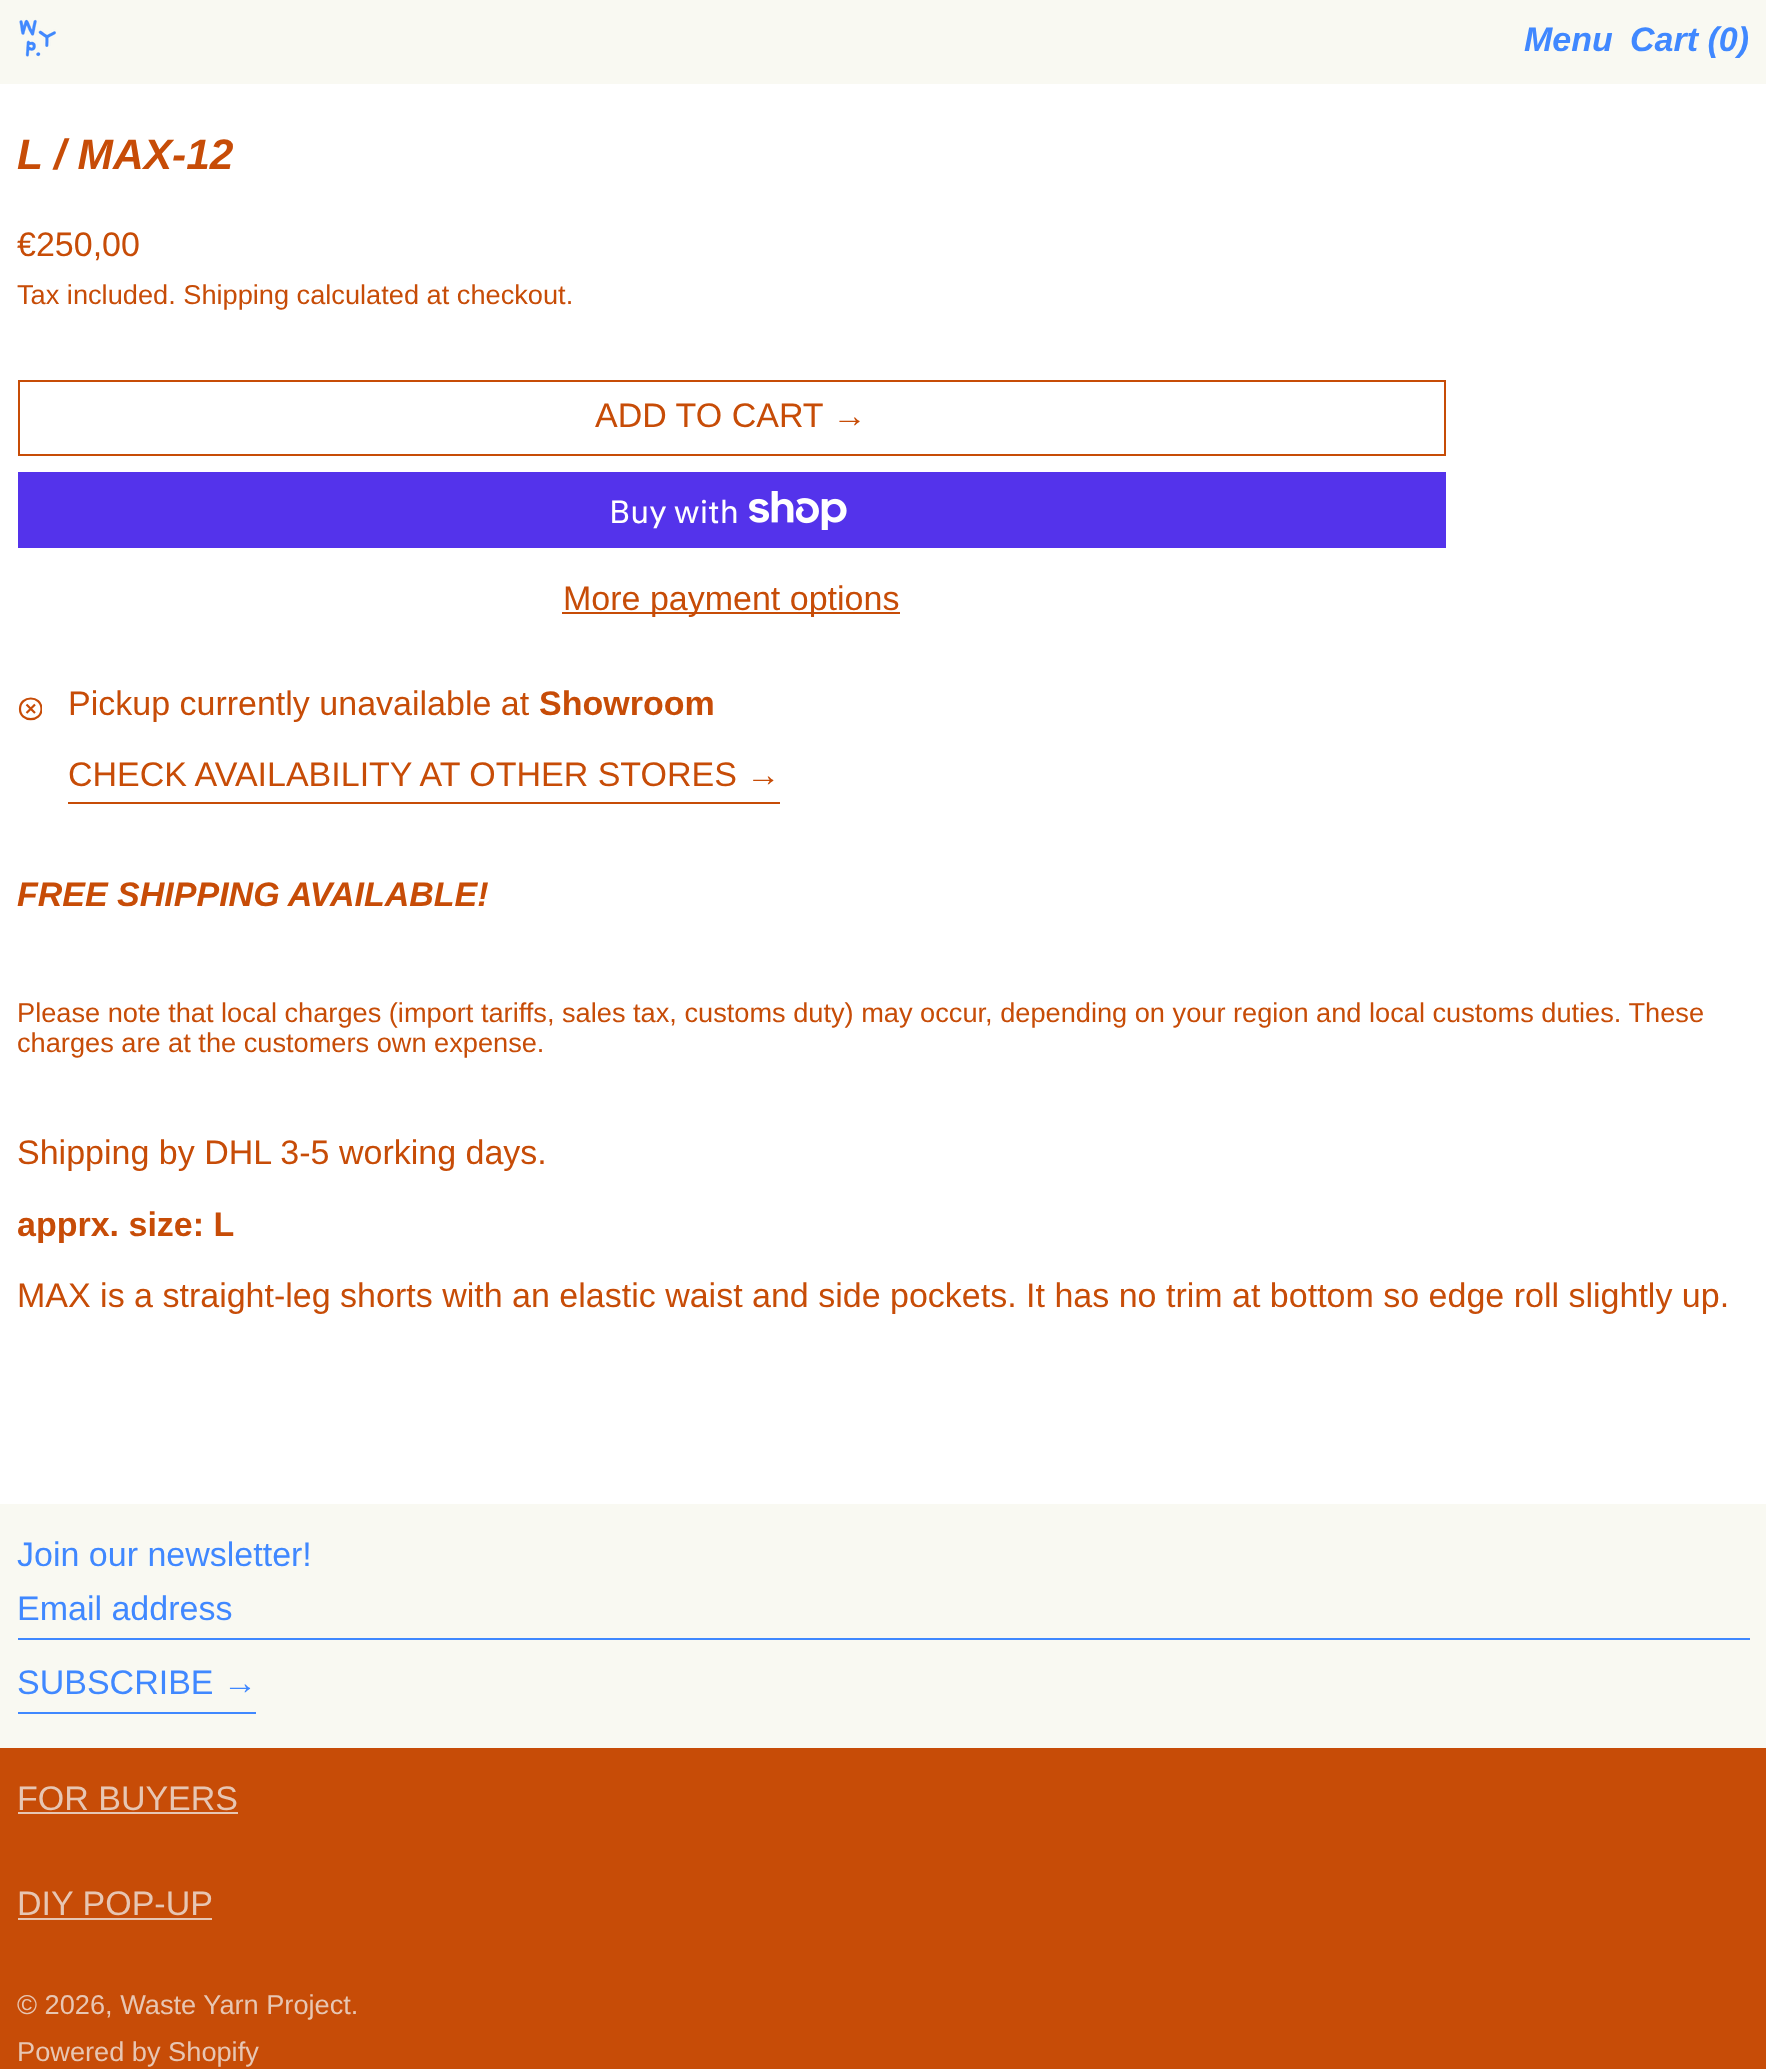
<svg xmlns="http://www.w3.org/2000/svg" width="1766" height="2069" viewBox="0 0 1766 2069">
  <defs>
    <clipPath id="clip1"><rect x="18" y="696" width="24" height="26"/></clipPath>
  </defs>
  <rect width="100%" height="100%" fill="rgb(249,249,242)"/>
  <image x="19" y="19" width="37" height="38" href="pic1.png"/>
  <g font-family="Liberation Sans" font-size="34" font-weight="bold" font-style="italic" fill="rgb(64,136,255)">
    <text x="1524" y="51">Menu</text>
    <text x="1630" y="51">Cart (0)</text>
  </g>
  <rect x="0" y="84" width="1766" height="1420" fill="rgb(255,255,255)"/>
  <text x="17" y="169" font-family="Liberation Sans" font-size="42.5" font-weight="bold" font-style="italic" fill="rgb(199,76,7)">L / MAX-12</text>
  <text x="17" y="256" font-family="Liberation Sans" font-size="34" fill="rgb(199,76,7)">€250,00</text>
  <text x="17" y="304" font-family="Liberation Sans" font-size="27.2" fill="rgb(199,76,7)">Tax included. Shipping calculated at checkout.</text>
  <rect x="19" y="381" width="1426" height="74" fill="none" stroke="rgb(199,76,7)" stroke-width="2"/>
  <text x="595" y="427" font-family="Liberation Sans" font-size="34" fill="rgb(199,76,7)">ADD TO CART →</text>
  <rect x="18" y="472" width="1428" height="76" fill="rgb(84,51,235)"/>
  <text x="609" y="523" font-family="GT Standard" font-size="32" fill="rgb(255,255,255)">Buy with</text>
  <image x="749" y="491" width="98" height="39" href="pic2.png"/>
  <rect x="562" y="612" width="338" height="2" fill="rgb(199,76,7)"/>
  <text x="563" y="610" font-family="Liberation Sans" font-size="34" fill="rgb(199,76,7)">More payment options</text>
  <g clip-path="url(#clip1)">
    <path d="M20 709C20 722.5 41.5 722.5 41.5 709C41.5 695 20 695 20 709ZM26.5 704.5L35 713M35 704.5L26.5 713" fill="none" stroke="rgb(199,76,7)" stroke-width="2.2"/>
  </g>
  <text x="68" y="715" font-family="Liberation Sans" font-size="34" fill="rgb(199,76,7)">Pickup currently unavailable at</text>
  <text x="539" y="715" font-family="Liberation Sans" font-size="34" font-weight="bold" fill="rgb(199,76,7)">Showroom</text>
  <text x="68" y="786" font-family="Liberation Sans" font-size="34" fill="rgb(199,76,7)">CHECK AVAILABILITY AT OTHER STORES →</text>
  <rect x="68" y="802" width="712" height="2" fill="rgb(199,76,7)"/>
  <text x="17" y="906" font-family="Liberation Sans" font-size="34" font-weight="bold" font-style="italic" fill="rgb(199,76,7)">FREE SHIPPING AVAILABLE!</text>
  <g font-family="Liberation Sans" font-size="27.2" fill="rgb(199,76,7)">
    <text>
      <tspan x="17" y="1022">Please note that local charges (import tariffs, sales tax, customs duty) may occur, depending on your region and local customs duties. These</tspan>
      <tspan x="17" y="1052">charges are at the customers own expense.</tspan>
    </text>
  </g>
  <text x="17" y="1164" font-family="Liberation Sans" font-size="34" fill="rgb(199,76,7)">Shipping by DHL 3-5 working days.</text>
  <text x="17" y="1236" font-family="Liberation Sans" font-size="34" font-weight="bold" fill="rgb(199,76,7)">apprx. size: L</text>
  <text x="17" y="1307" font-family="Liberation Sans" font-size="34" fill="rgb(199,76,7)">MAX is a straight-leg shorts with an elastic waist and side pockets. It has no trim at bottom so edge roll slightly up.</text>
  <rect x="0" y="1958" width="1766" height="111" fill="rgb(199,76,7)"/>
  <text x="17" y="1566" font-family="Liberation Sans" font-size="34" fill="rgb(64,136,255)">Join our newsletter!</text>
  <rect x="18" y="1638" width="1732" height="2" fill="rgb(64,136,255)"/>
  <text x="17" y="1620" font-family="Liberation Sans" font-size="34" fill="rgb(64,136,255)">Email address</text>
  <rect x="18" y="1712" width="238" height="2" fill="rgb(64,136,255)"/>
  <text x="17" y="1694" font-family="Liberation Sans" font-size="34" fill="rgb(64,136,255)">SUBSCRIBE →</text>
  <rect x="0" y="1748" width="1766" height="210" fill="rgb(199,76,7)"/>
  <text x="17" y="1810" font-family="Liberation Sans" font-size="34" fill="rgb(231,198,179)">FOR BUYERS</text>
  <rect x="18" y="1812" width="220" height="2" fill="rgb(231,198,179)"/>
  <text x="17" y="1915" font-family="Liberation Sans" font-size="34" fill="rgb(231,198,179)">DIY POP-UP</text>
  <rect x="18" y="1918" width="194" height="2" fill="rgb(231,198,179)"/>
  <g font-family="Liberation Sans" font-size="27.2" fill="rgb(231,198,179)">
    <text>
      <tspan x="17" y="2014">© 2026, Waste Yarn Project.</tspan>
      <tspan x="17" y="2061">Powered by Shopify</tspan>
    </text>
  </g>
</svg>
